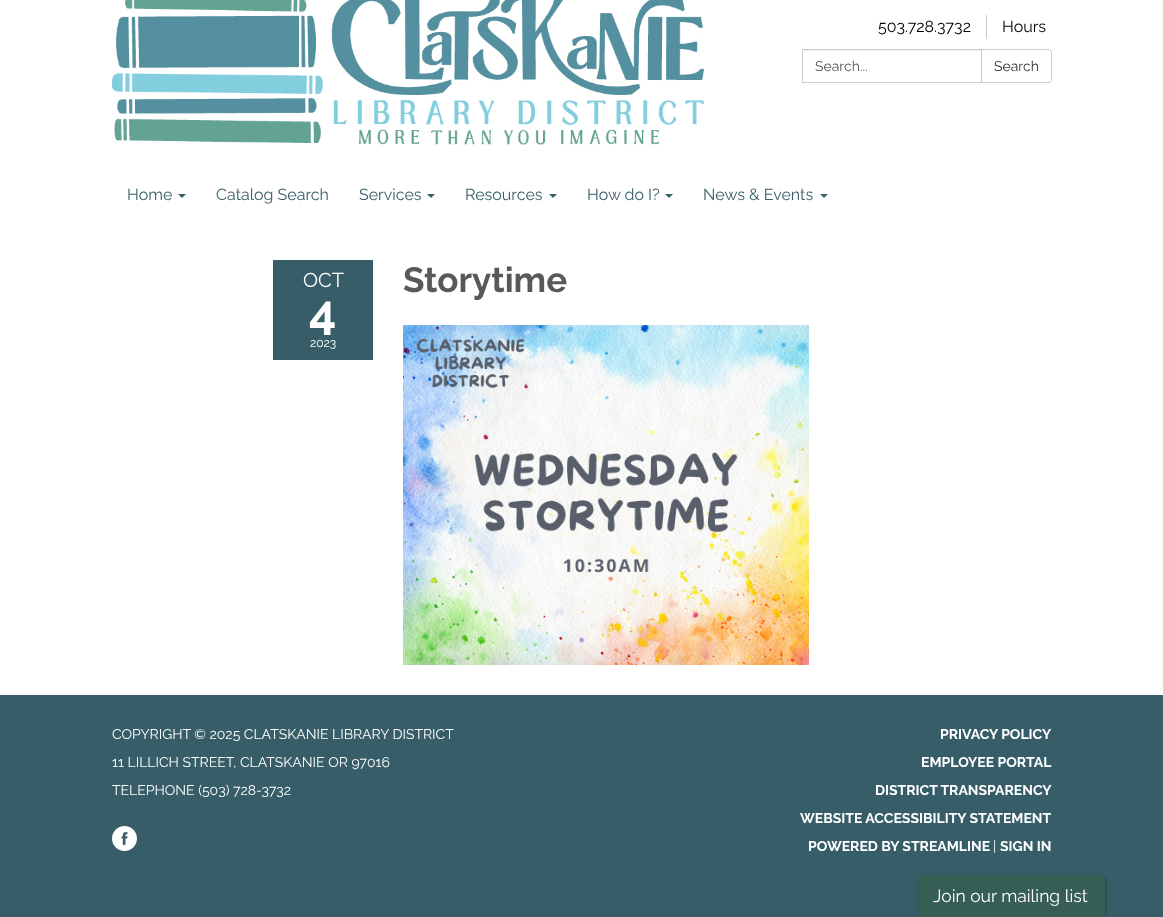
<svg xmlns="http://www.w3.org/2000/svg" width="1163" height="917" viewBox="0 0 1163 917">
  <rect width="100%" height="100%" fill="rgb(55,94,104)"/>
  <rect x="0" y="0" width="1163" height="170" fill="rgb(255,255,255)"/>
  <image x="112" y="0" width="592" height="145" href="pic1.png"/>
  <text x="878" y="32" font-family="Raleway" font-size="16" fill="rgb(0,0,0)">503.728.3732</text>
  <rect x="986" y="15" width="1" height="24" fill="rgb(200,201,203)"/>
  <text x="1002" y="32" font-family="Raleway" font-size="16" fill="rgb(0,0,0)">Hours</text>
  <rect x="803" y="50" width="178" height="1" fill="rgb(236,236,236)"/>
  <rect x="802.5" y="49.5" width="179" height="33" fill="none" stroke="rgb(204,204,204)"/>
  <text x="815" y="71" font-family="Raleway" font-size="14" fill="rgb(88,89,91)">Search...</text>
  <path d="M981.5 49.5H1048C1050 49.5 1051.5 51 1051.5 53V79C1051.5 81 1050 82.5 1048 82.5H981.5Z" fill="rgb(255,255,255)" stroke="rgb(204,204,204)"/>
  <text x="994" y="71" font-family="Raleway" font-size="14" fill="rgb(51,51,51)">Search</text>
  <rect x="0" y="170" width="1163" height="525" fill="rgb(255,255,255)"/>
  <text x="127" y="200" font-family="Raleway" font-size="16" fill="rgb(55,94,104)">Home</text>
  <path d="M178 194H186L182 198Z" fill="rgb(55,94,104)"/>
  <g font-family="Raleway" font-size="16" fill="rgb(55,94,104)">
    <text x="216" y="200">Catalog Search</text>
    <text x="359" y="200">Services</text>
  </g>
  <path d="M427 194H435L431 198Z" fill="rgb(55,94,104)"/>
  <text x="465" y="200" font-family="Raleway" font-size="16" fill="rgb(55,94,104)">Resources</text>
  <path d="M549 194H557L553 198Z" fill="rgb(55,94,104)"/>
  <text x="587" y="200" font-family="Raleway" font-size="16" fill="rgb(55,94,104)">How do I?</text>
  <path d="M665 194H673L669 198Z" fill="rgb(55,94,104)"/>
  <text x="703" y="200" font-family="Raleway" font-size="16" fill="rgb(55,94,104)">News &amp; Events</text>
  <path d="M820 194H828L824 198Z" fill="rgb(55,94,104)"/>
  <rect x="273" y="260" width="100" height="100" fill="rgb(55,94,104)"/>
  <text x="303" y="287" font-family="Raleway" font-size="20" fill="rgb(255,255,255)">OCT</text>
  <text x="309" y="329" font-family="Raleway" font-size="48" font-weight="bold" fill="rgb(255,255,255)">4</text>
  <text x="310" y="347" font-family="Raleway" font-size="12" fill="rgb(255,255,255)">2023</text>
  <text x="403" y="292" font-family="Raleway" font-size="35" font-weight="bold" fill="rgb(88,89,91)">Storytime</text>
  <image x="403" y="325" width="406" height="340" href="pic2.png"/>
  <g font-family="Raleway" font-size="14" fill="rgb(255,255,255)">
    <text x="112" y="739">COPYRIGHT © 2025 CLATSKANIE LIBRARY DISTRICT</text>
    <text x="112" y="767">11 LILLICH STREET, CLATSKANIE OR 97016</text>
    <text x="112" y="795">TELEPHONE (503) 728-3732</text>
  </g>
  <image x="112" y="826" width="25" height="25" href="pic3.png"/>
  <g font-family="Raleway" font-size="14" font-weight="bold" fill="rgb(255,255,255)">
    <text x="940" y="739">PRIVACY POLICY</text>
    <text x="921" y="767">EMPLOYEE PORTAL</text>
    <text x="875" y="795">DISTRICT TRANSPARENCY</text>
    <text x="800" y="823">WEBSITE ACCESSIBILITY STATEMENT</text>
    <text x="808" y="851">POWERED BY STREAMLINE</text>
  </g>
  <text x="993" y="851" font-family="Raleway" font-size="14" fill="rgb(255,255,255)">|</text>
  <text x="1000" y="851" font-family="Raleway" font-size="14" font-weight="bold" fill="rgb(255,255,255)">SIGN IN</text>
  <rect x="918" y="876" width="188" height="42" rx="6" fill="rgba(0,0,0,0.3)" filter="blur(1.5px)"/>
  <path d="M923 875H1099C1102.5 875 1105 877.5 1105 881V917H917V881C917 877.5 919.5 875 923 875Z" fill="rgb(54,94,85)"/>
  <text x="933" y="902" font-family="Raleway" font-size="17.5" fill="rgb(255,255,255)">Join our mailing list</text>
</svg>
